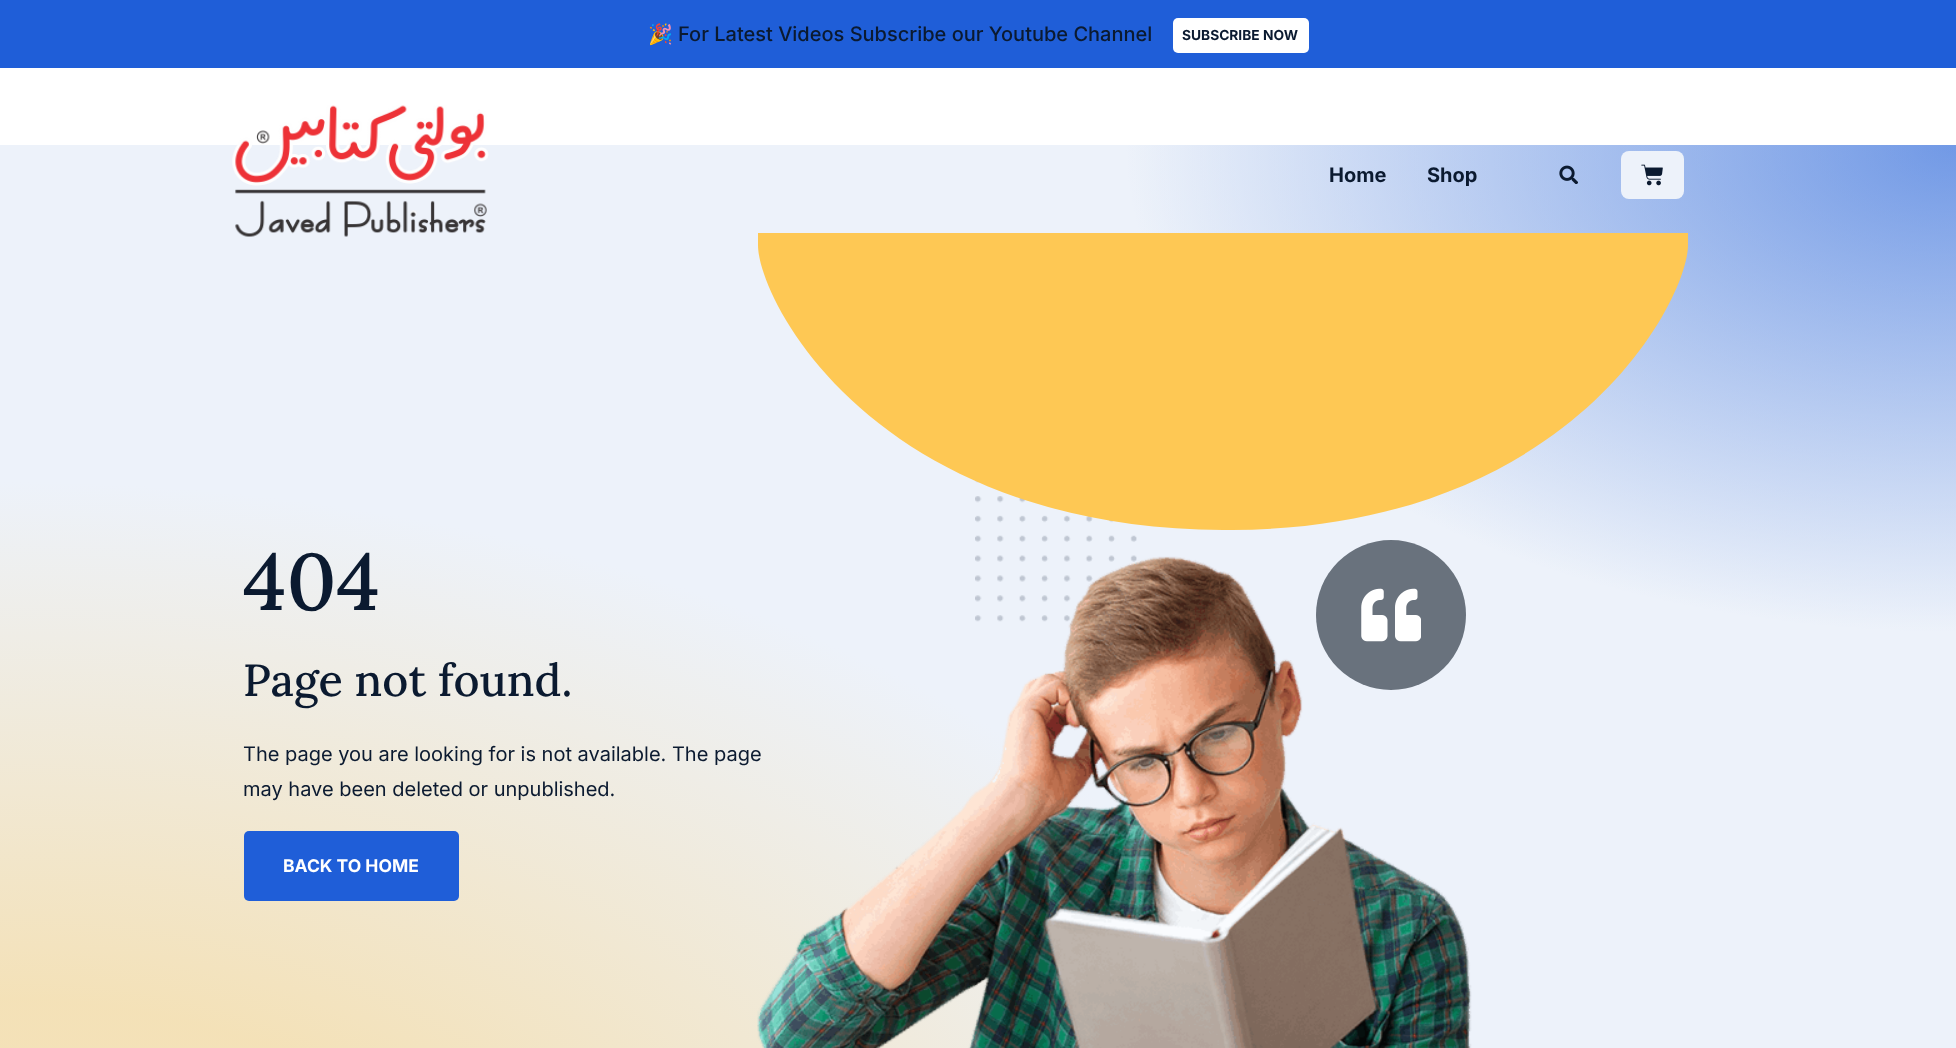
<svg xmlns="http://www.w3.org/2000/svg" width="1956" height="1048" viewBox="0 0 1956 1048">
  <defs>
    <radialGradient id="g1" gradientUnits="userSpaceOnUse" cx="0" cy="0" r="1" gradientTransform="matrix(2767 0 0 1623 1956 145)"><stop offset="0" stop-color="rgb(31,94,216)"/><stop offset="0.3" stop-color="rgb(237,242,250)"/></radialGradient>
    <radialGradient id="g2" gradientUnits="userSpaceOnUse" cx="0" cy="0" r="1" gradientTransform="matrix(2767 0 0 1623 0 1293)"><stop offset="0.18" stop-color="rgb(254,200,84)" stop-opacity="0.4"/><stop offset="0.5" stop-color="rgb(237,242,250)" stop-opacity="0.4"/></radialGradient>
    <clipPath id="clip1"><rect x="758" y="233" width="930" height="297"/></clipPath>
  </defs>
  <rect width="100%" height="100%" fill="rgb(255,255,255)"/>
  <rect x="0" y="0" width="1956" height="68" fill="rgb(31,94,216)"/>
  <text x="648" y="41" font-family="Noto Color Emoji" font-size="20" fill="rgb(11,26,48)">🎉</text>
  <text x="678" y="41" font-family="Inter" font-size="20" font-weight="500" fill="rgb(11,26,48)">For Latest Videos Subscribe our Youtube Channel</text>
  <rect x="1173" y="18" width="136" height="35" rx="5" fill="rgb(255,255,255)"/>
  <text x="1182" y="40" font-family="Inter" font-size="13.75" font-weight="bold" fill="rgb(11,26,48)">SUBSCRIBE NOW</text>
  <rect x="0" y="145" width="1956" height="903" fill="url(#g1)"/>
  <rect x="0" y="145" width="1956" height="903" fill="url(#g2)"/>
  <image x="232" y="105" width="257" height="132" href="pic1.png"/>
  <g font-family="Inter" font-size="20" font-weight="bold" fill="rgb(11,26,48)">
    <text x="1329" y="182">Home</text>
    <text x="1427" y="182">Shop</text>
  </g>
  <image x="1559" y="165" width="19" height="19" href="pic2.png"/>
  <rect x="1621" y="151" width="63" height="48" rx="8" fill="rgb(237,242,250)"/>
  <image x="1641" y="164" width="22" height="22" href="pic3.png"/>
  <text x="243" y="610" font-family="Lora" font-size="80" font-weight="500" fill="rgb(11,26,48)">404</text>
  <text x="243" y="696" font-family="Lora" font-size="45" font-weight="500" fill="rgb(11,26,48)">Page not found.</text>
  <g font-family="Inter" font-size="20" fill="rgb(11,26,48)">
    <text>
      <tspan x="243" y="761">The page you are looking for is not available. The page</tspan>
      <tspan x="243" y="796">may have been deleted or unpublished.</tspan>
    </text>
  </g>
  <rect x="244" y="831" width="215" height="70" rx="5" fill="rgb(31,94,216)"/>
  <text x="283" y="872" font-family="Inter" font-size="17.5" font-weight="bold" fill="rgb(255,255,255)">BACK TO HOME</text>
  <image x="975" y="480" width="162" height="142" href="pic4.png"/>
  <g clip-path="url(#clip1)">
    <path d="M1688 245V232H758V245C758 301 875 528 1223 530C1570 532 1688 300 1688 245Z" fill="rgb(254,200,84)"/>
  </g>
  <circle cx="1391" cy="615" r="75" fill="rgb(105,114,125)"/>
  <image x="1361" y="588" width="60" height="54" href="pic5.png"/>
  <image x="757" y="556" width="715" height="492" href="pic6.png"/>
</svg>
